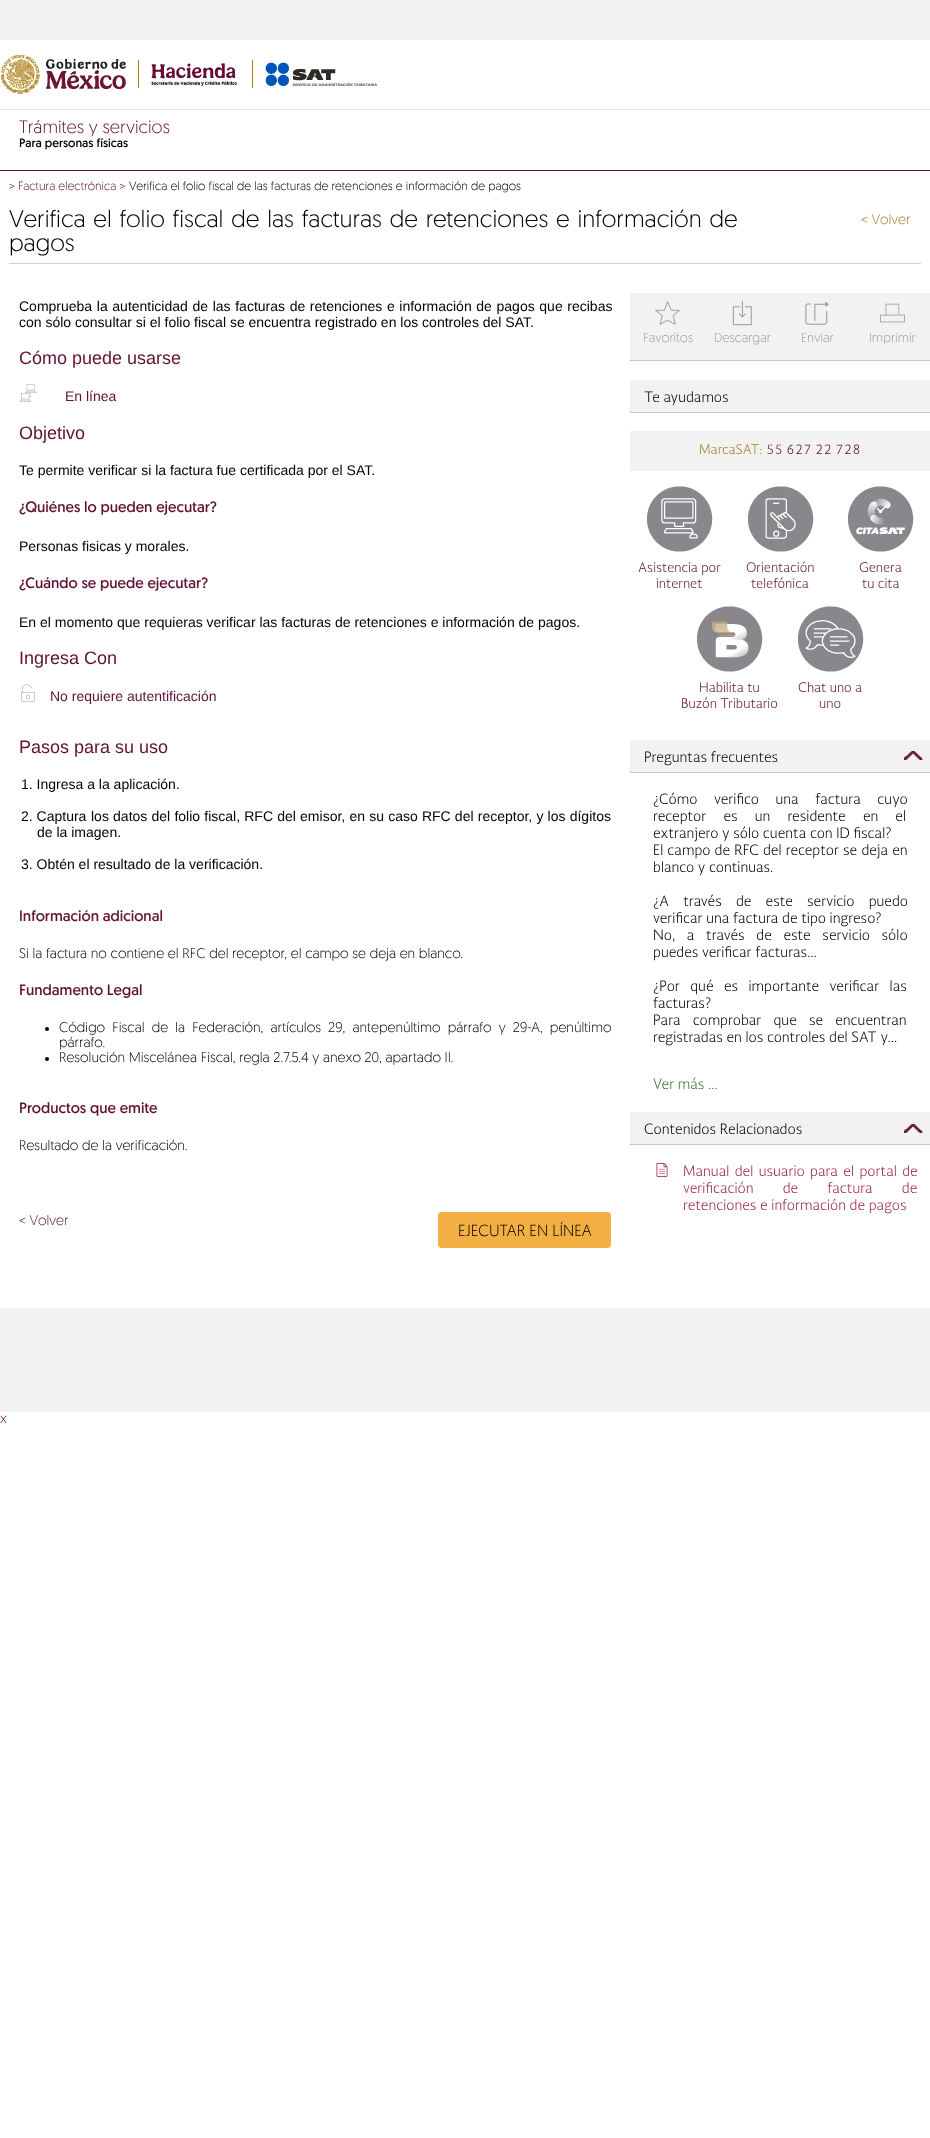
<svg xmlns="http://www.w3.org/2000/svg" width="930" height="2138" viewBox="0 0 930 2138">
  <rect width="100%" height="100%" fill="rgb(255,255,255)"/>
  <rect x="0" y="0" width="930" height="40" fill="rgb(242,242,242)"/>
  <image x="1" y="54" width="376" height="40" href="pic1.png"/>
  <rect x="0" y="109" width="930" height="1" fill="rgb(230,230,230)"/>
  <text x="19" y="133" font-family="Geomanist" font-size="18" font-weight="300" fill="rgb(97,18,50)">Trámites y servicios</text>
  <text x="19" y="147" font-family="Geomanist" font-size="12" fill="rgb(0,0,0)">Para personas físicas</text>
  <rect x="0" y="170" width="930" height="1" fill="rgb(97,18,50)"/>
  <text x="9" y="190" font-family="Geomanist" font-size="12" font-weight="300" fill="rgb(97,18,50)">&gt; Factura electrónica &gt;</text>
  <text x="129" y="190" font-family="Geomanist" font-size="12" font-weight="300" fill="rgb(0,0,0)">Verifica el folio fiscal de las facturas de retenciones e información de pagos</text>
  <rect x="9" y="263" width="912" height="1" fill="rgb(208,208,208)"/>
  <g font-family="Geomanist" font-size="24" font-weight="300" fill="rgb(0,0,0)">
    <text>
      <tspan x="9" y="227" word-spacing="1.5">Verifica el folio fiscal de las facturas de retenciones e información de</tspan>
      <tspan x="9" y="251">pagos</tspan>
    </text>
  </g>
  <text x="861" y="224" font-family="Geomanist" font-size="14" font-weight="300" fill="rgb(165,127,44)">&lt; Volver</text>
  <g font-family="Liberation Sans" font-size="14" fill="rgb(0,0,0)">
    <text>
      <tspan x="19" y="311" word-spacing="0.75">Comprueba la autenticidad de las facturas de retenciones e información de pagos que recibas</tspan>
      <tspan x="19" y="327">con sólo consultar si el folio fiscal se encuentra registrado en los controles del SAT.</tspan>
    </text>
  </g>
  <text x="19" y="364" font-family="Liberation Sans" font-size="18" fill="rgb(97,18,50)">Cómo puede usarse</text>
  <image x="19" y="384" width="18" height="18" href="pic2.png"/>
  <text x="65" y="401" font-family="Liberation Sans" font-size="14" fill="rgb(97,18,50)">En línea</text>
  <text x="19" y="439" font-family="Liberation Sans" font-size="18" fill="rgb(97,18,50)">Objetivo</text>
  <text x="19" y="475" font-family="Liberation Sans" font-size="14" fill="rgb(0,0,0)">Te permite verificar si la factura fue certificada por el SAT.</text>
  <text x="19" y="512" font-family="Geomanist" font-size="15" fill="rgb(97,18,50)">¿Quiénes lo pueden ejecutar?</text>
  <text x="19" y="551" font-family="Liberation Sans" font-size="14" fill="rgb(0,0,0)">Personas fisicas y morales.</text>
  <text x="19" y="588" font-family="Geomanist" font-size="15" fill="rgb(97,18,50)">¿Cuándo se puede ejecutar?</text>
  <text x="19" y="627" font-family="Liberation Sans" font-size="14" fill="rgb(0,0,0)">En el momento que requieras verificar las facturas de retenciones e información de pagos.</text>
  <text x="19" y="664" font-family="Liberation Sans" font-size="18" fill="rgb(97,18,50)">Ingresa Con</text>
  <image x="21" y="684" width="14" height="19" href="pic3.png"/>
  <text x="50" y="701" font-family="Liberation Sans" font-size="14" fill="rgb(97,18,50)">No requiere autentificación</text>
  <text x="19" y="753" font-family="Liberation Sans" font-size="18" fill="rgb(97,18,50)">Pasos para su uso</text>
  <g font-family="Liberation Sans" font-size="14" fill="rgb(0,0,0)">
    <text x="21" y="789">1. Ingresa a la aplicación.</text>
    <text x="21" y="821">2. Captura</text>
    <text x="91" y="821" word-spacing="0.3">los datos del folio fiscal, RFC del emisor, en su caso RFC del receptor, y los dígitos</text>
    <text x="37" y="837">de la imagen.</text>
    <text x="21" y="869">3. Obtén el resultado de la verificación.</text>
  </g>
  <text x="19" y="921" font-family="Geomanist" font-size="15" fill="rgb(97,18,50)">Información adicional</text>
  <text x="19" y="958" font-family="Geomanist" font-size="14" font-weight="300" fill="rgb(0,0,0)">Si la factura no contiene el RFC del receptor, el campo se deja en blanco.</text>
  <text x="19" y="995" font-family="Geomanist" font-size="15" fill="rgb(97,18,50)">Fundamento Legal</text>
  <circle cx="47" cy="1029" r="2" fill="rgb(0,0,0)"/>
  <g font-family="Geomanist" font-size="14" font-weight="300" fill="rgb(0,0,0)">
    <text>
      <tspan x="59" y="1032" word-spacing="3.5">Código Fiscal de la Federación, artículos 29, antepenúltimo párrafo y 29-A, penúltimo</tspan>
      <tspan x="59" y="1047">párrafo.</tspan>
    </text>
  </g>
  <circle cx="47" cy="1059" r="2" fill="rgb(0,0,0)"/>
  <text x="59" y="1062" font-family="Geomanist" font-size="14" font-weight="300" fill="rgb(0,0,0)">Resolución Miscelánea Fiscal, regla 2.7.5.4 y anexo 20, apartado II.</text>
  <text x="19" y="1113" font-family="Geomanist" font-size="15" fill="rgb(97,18,50)">Productos que emite</text>
  <text x="19" y="1150" font-family="Geomanist" font-size="14" font-weight="300" fill="rgb(0,0,0)">Resultado de la verificación.</text>
  <text x="19" y="1225" font-family="Geomanist" font-size="14" font-weight="300" fill="rgb(97,18,50)">&lt; Volver</text>
  <rect x="438" y="1212" width="173" height="36" rx="4" fill="rgb(243,175,67)"/>
  <text x="458" y="1236" font-family="Geomanist" font-size="16" font-weight="300" fill="rgb(0,0,0)">EJECUTAR EN LÍNEA</text>
  <rect x="630" y="293" width="300" height="67" fill="rgb(242,242,242)"/>
  <rect x="630" y="360" width="300" height="1" fill="rgb(198,198,198)"/>
  <image x="655" y="301" width="25" height="24" href="pic4.png"/>
  <text x="643" y="342" font-family="Geomanist" font-size="13" font-weight="300" fill="rgb(161,161,161)">Favoritos</text>
  <image x="732" y="300" width="20" height="26" href="pic5.png"/>
  <text x="714" y="342" font-family="Geomanist" font-size="13" font-weight="300" fill="rgb(161,161,161)">Descargar</text>
  <image x="805" y="301" width="24" height="24" href="pic6.png"/>
  <text x="801" y="342" font-family="Geomanist" font-size="13" font-weight="300" fill="rgb(161,161,161)">Enviar</text>
  <image x="880" y="303" width="25" height="20" href="pic7.png"/>
  <text x="869" y="342" font-family="Geomanist" font-size="13" font-weight="300" fill="rgb(161,161,161)">Imprimir</text>
  <rect x="630" y="380" width="300" height="32" fill="rgb(242,242,242)"/>
  <rect x="630" y="412" width="300" height="1" fill="rgb(198,198,198)"/>
  <text x="644" y="402" font-family="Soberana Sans" font-size="14" font-weight="300" fill="rgb(0,0,0)">Te ayudamos</text>
  <rect x="630" y="431" width="300" height="40" fill="rgb(242,242,242)"/>
  <text x="699" y="454" font-family="Soberana Sans" font-size="13" font-weight="300" fill="rgb(165,127,44)">MarcaSAT:</text>
  <text x="766" y="454" font-family="Soberana Sans" font-size="13" font-weight="300" fill="rgb(97,18,50)">55 627 22 728</text>
  <image x="647" y="486" width="66" height="66" href="pic8.png"/>
  <g font-family="Soberana Sans" font-size="13" font-weight="300" fill="rgb(97,18,50)">
    <text x="638" y="572">Asistencia por</text>
    <text x="656" y="588">internet</text>
  </g>
  <image x="748" y="486" width="66" height="66" href="pic9.png"/>
  <g font-family="Soberana Sans" font-size="13" font-weight="300" fill="rgb(97,18,50)">
    <text x="746" y="572">Orientación</text>
    <text x="751" y="588">telefónica</text>
  </g>
  <image x="848" y="486" width="66" height="66" href="pic10.png"/>
  <g font-family="Soberana Sans" font-size="13" font-weight="300" fill="rgb(97,18,50)">
    <text x="859" y="572">Genera</text>
    <text x="862" y="588">tu cita</text>
  </g>
  <image x="697" y="606" width="66" height="66" href="pic11.png"/>
  <g font-family="Soberana Sans" font-size="13" font-weight="300" fill="rgb(97,18,50)">
    <text x="699" y="692">Habilita tu</text>
    <text x="681" y="708">Buzón Tributario</text>
  </g>
  <image x="798" y="606" width="66" height="66" href="pic12.png"/>
  <g font-family="Soberana Sans" font-size="13" font-weight="300" fill="rgb(97,18,50)">
    <text x="798" y="692">Chat uno a</text>
    <text x="819" y="708">uno</text>
  </g>
  <rect x="630" y="740" width="300" height="32" fill="rgb(242,242,242)"/>
  <image x="904" y="751" width="19" height="9" href="pic13.png"/>
  <rect x="630" y="772" width="300" height="1" fill="rgb(198,198,198)"/>
  <g font-family="Soberana Sans" font-size="14" font-weight="300" fill="rgb(0,0,0)">
    <text x="644" y="762">Preguntas frecuentes</text>
    <text>
      <tspan x="653" y="804" word-spacing="13">¿Cómo verifico una factura cuyo</tspan>
      <tspan x="653" y="821" word-spacing="13.5">receptor es un residente en el</tspan>
      <tspan x="653" y="838">extranjero y sólo cuenta con ID fiscal?</tspan>
      <tspan x="653" y="855" word-spacing="0.5">El campo de RFC del receptor se deja en</tspan>
      <tspan x="653" y="872">blanco y continuas.</tspan>
    </text>
    <text>
      <tspan x="653" y="906" word-spacing="10.5">¿A través de este servicio puedo</tspan>
      <tspan x="653" y="923">verificar una factura de tipo ingreso?</tspan>
      <tspan x="653" y="940" word-spacing="8">No, a través de este servicio sólo</tspan>
      <tspan x="653" y="957">puedes verificar facturas...</tspan>
    </text>
    <text>
      <tspan x="653" y="991" word-spacing="6.75">¿Por qué es importante verificar las</tspan>
      <tspan x="653" y="1008">facturas?</tspan>
      <tspan x="653" y="1025" word-spacing="8.5">Para comprobar que se encuentran</tspan>
      <tspan x="653" y="1042">registradas en los controles del SAT y...</tspan>
    </text>
  </g>
  <text x="653" y="1089" font-family="Soberana Sans" font-size="14" font-weight="300" fill="rgb(51,119,50)">Ver más ...</text>
  <rect x="630" y="1112" width="300" height="32" fill="rgb(242,242,242)"/>
  <image x="904" y="1124" width="19" height="9" href="pic13.png"/>
  <rect x="630" y="1144" width="300" height="1" fill="rgb(198,198,198)"/>
  <text x="644" y="1134" font-family="Soberana Sans" font-size="14" font-weight="300" fill="rgb(0,0,0)">Contenidos Relacionados</text>
  <image x="656" y="1162" width="12" height="15" href="pic14.png"/>
  <g font-family="Soberana Sans" font-size="14" font-weight="300" fill="rgb(155,34,71)">
    <text>
      <tspan x="683" y="1176" word-spacing="1.75">Manual del usuario para el portal de</tspan>
      <tspan x="683" y="1193" word-spacing="25.5">verificación de factura de</tspan>
      <tspan x="683" y="1210">retenciones e información de pagos</tspan>
    </text>
  </g>
  <rect x="0" y="1308" width="930" height="104" fill="rgb(242,242,242)"/>
  <text x="0" y="1423" font-family="Geomanist" font-size="14" font-weight="300" fill="rgb(97,18,50)">x</text>
</svg>
